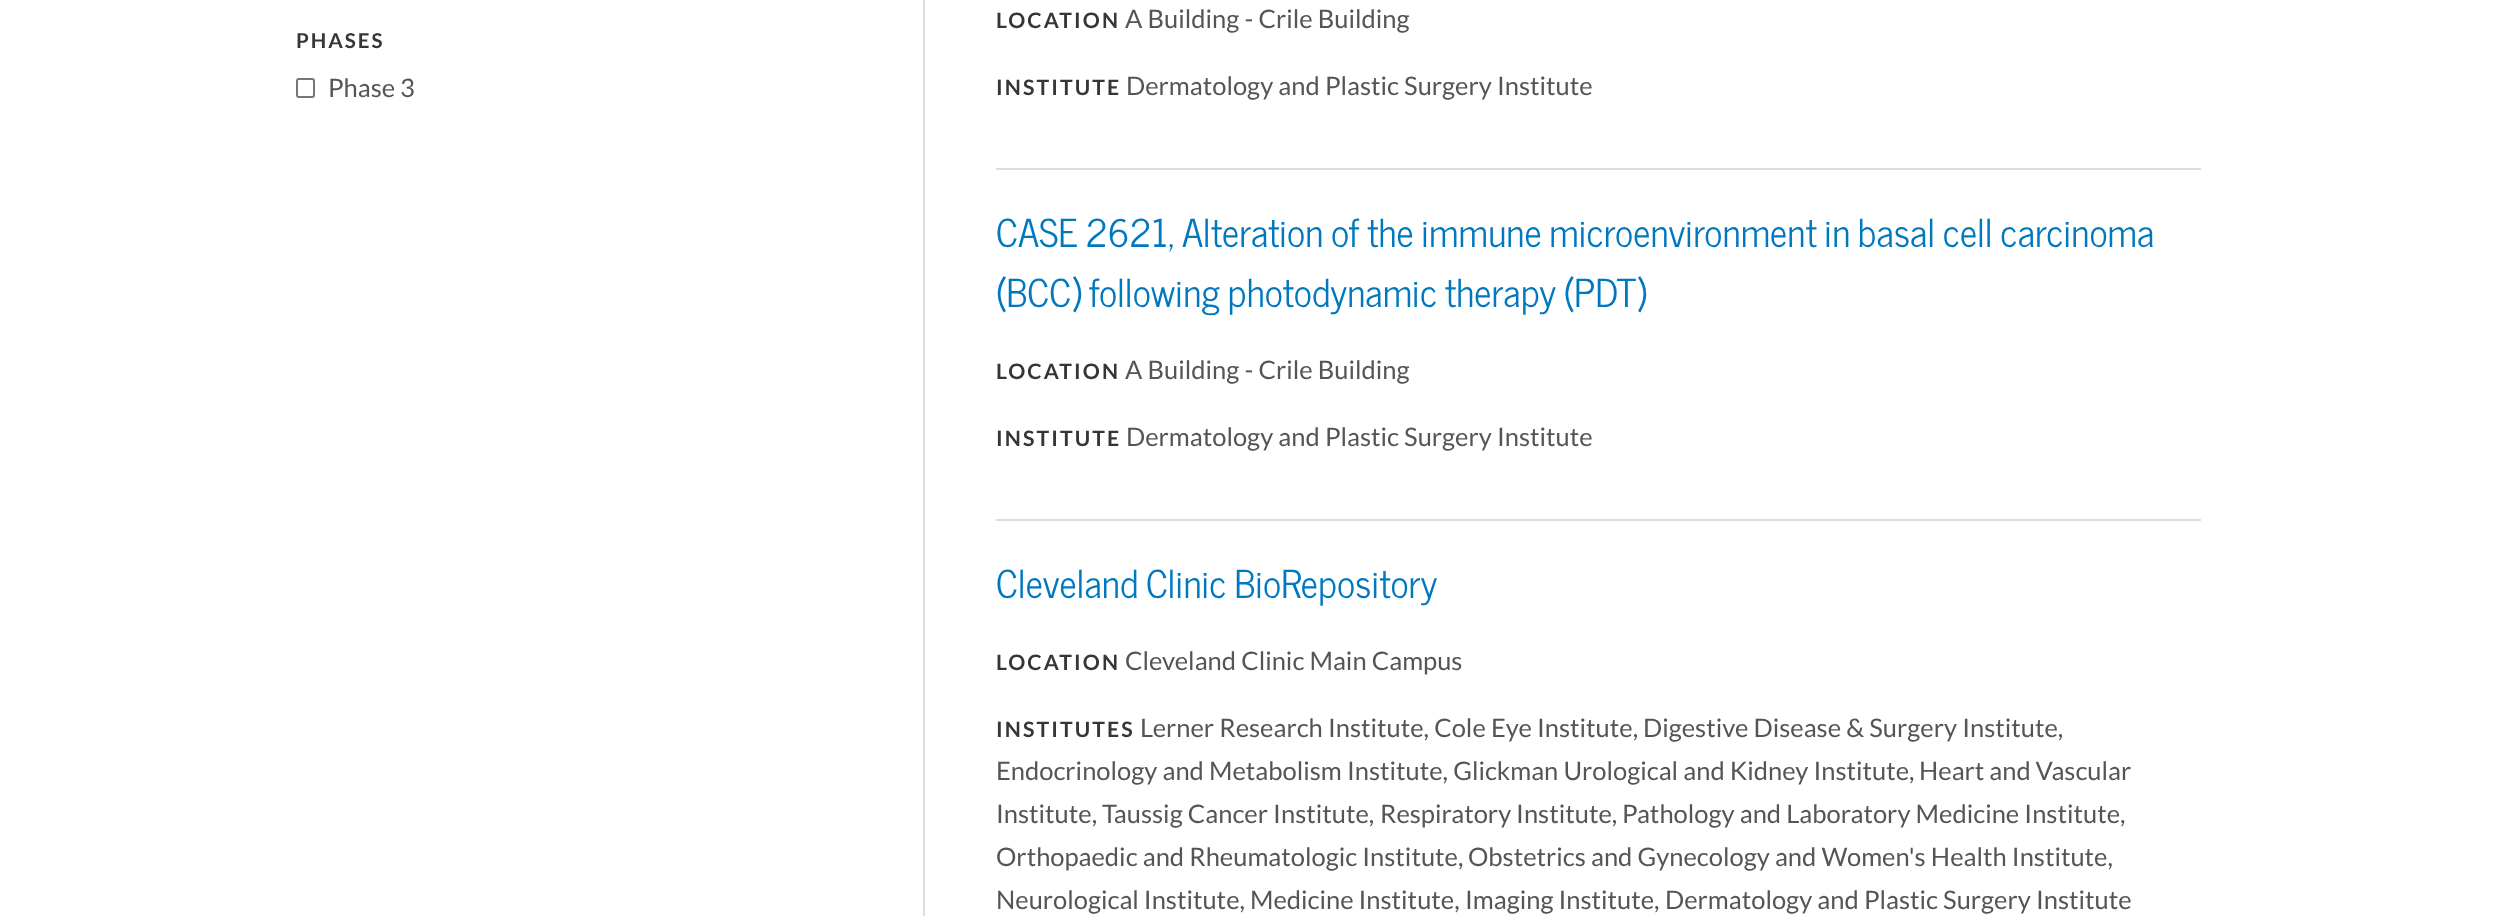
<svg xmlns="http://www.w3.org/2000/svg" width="2496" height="916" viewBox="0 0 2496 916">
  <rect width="100%" height="100%" fill="rgb(255,255,255)"/>
  <text x="296" y="48" font-family="Lato" font-size="20.5" font-weight="bold" letter-spacing="2" fill="rgb(54,54,54)">PHASES</text>
  <rect x="297" y="79" width="17" height="18" rx="2" fill="none" stroke="rgb(118,118,118)" stroke-width="2"/>
  <text x="328" y="97" font-family="Lato" font-size="25.5" fill="rgb(85,85,85)">Phase 3</text>
  <rect x="923" y="0" width="2" height="916" fill="rgb(221,221,221)"/>
  <rect x="996" y="168" width="1205" height="2" fill="rgb(221,221,221)"/>
  <text x="996" y="28" font-family="Lato" font-size="21.25" font-weight="bold" letter-spacing="2.1" fill="rgb(54,54,54)">LOCATION</text>
  <text x="1125" y="28" word-spacing="0.25" font-family="Lato" font-size="25.5" fill="rgb(85,85,85)">A Building - Crile Building</text>
  <text x="996" y="95" font-family="Lato" font-size="21.25" font-weight="bold" letter-spacing="2.1" fill="rgb(54,54,54)">INSTITUTE</text>
  <text x="1126" y="95" word-spacing="0.25" font-family="Lato" font-size="25.5" fill="rgb(85,85,85)">Dermatology and Plastic Surgery Institute</text>
  <rect x="996" y="519" width="1205" height="2" fill="rgb(221,221,221)"/>
  <g font-family="News Cycle" font-size="38.25" fill="rgb(0,120,191)">
    <text>
      <tspan x="996" y="247" word-spacing="-2">CASE 2621, Alteration of the immune microenvironment in basal cell carcinoma</tspan>
      <tspan x="996" y="307" word-spacing="-2">(BCC) following photodynamic therapy (PDT)</tspan>
    </text>
  </g>
  <text x="996" y="379" font-family="Lato" font-size="21.25" font-weight="bold" letter-spacing="2.1" fill="rgb(54,54,54)">LOCATION</text>
  <text x="1125" y="379" word-spacing="0.25" font-family="Lato" font-size="25.5" fill="rgb(85,85,85)">A Building - Crile Building</text>
  <text x="996" y="446" font-family="Lato" font-size="21.25" font-weight="bold" letter-spacing="2.1" fill="rgb(54,54,54)">INSTITUTE</text>
  <text x="1126" y="446" word-spacing="0.25" font-family="Lato" font-size="25.5" fill="rgb(85,85,85)">Dermatology and Plastic Surgery Institute</text>
  <text x="996" y="598" word-spacing="-2" font-family="News Cycle" font-size="38.25" fill="rgb(0,120,191)">Cleveland Clinic BioRepository</text>
  <text x="996" y="670" font-family="Lato" font-size="21.25" font-weight="bold" letter-spacing="2.1" fill="rgb(54,54,54)">LOCATION</text>
  <text x="1125" y="670" word-spacing="0.25" font-family="Lato" font-size="25.5" fill="rgb(85,85,85)">Cleveland Clinic Main Campus</text>
  <text x="996" y="737" font-family="Lato" font-size="21.25" font-weight="bold" letter-spacing="2.1" fill="rgb(54,54,54)">INSTITUTES</text>
  <g font-family="Lato" font-size="25.5" fill="rgb(85,85,85)">
    <text x="1140" y="737" word-spacing="0.25">Lerner Research Institute, Cole Eye Institute,</text>
    <text x="1643" y="737" word-spacing="0.25">Digestive Disease &amp; Surgery Institute,</text>
    <text x="996" y="780" word-spacing="0.25">Endocrinology and Metabolism Institute, Glickman Urological and Kidney Institute,</text>
    <text x="1919" y="780">Heart and Vascular</text>
    <text x="996" y="823">Institute,</text>
    <text x="1102" y="823" word-spacing="0.25">Taussig Cancer Institute,</text>
    <text x="1380" y="823">Respiratory Institute,</text>
    <text x="1622" y="823" word-spacing="0.25">Pathology and Laboratory Medicine Institute,</text>
    <text x="996" y="866" word-spacing="0.25">Orthopaedic and Rheumatologic Institute,</text>
    <text x="1468" y="866" word-spacing="0.25">Obstetrics and Gynecology and Women's Health Institute,</text>
    <text x="996" y="909">Neurological Institute,</text>
    <text x="1250" y="909">Medicine Institute,</text>
    <text x="1465" y="909">Imaging Institute,</text>
    <text x="1665" y="909" word-spacing="0.25">Dermatology and Plastic Surgery Institute</text>
  </g>
</svg>
